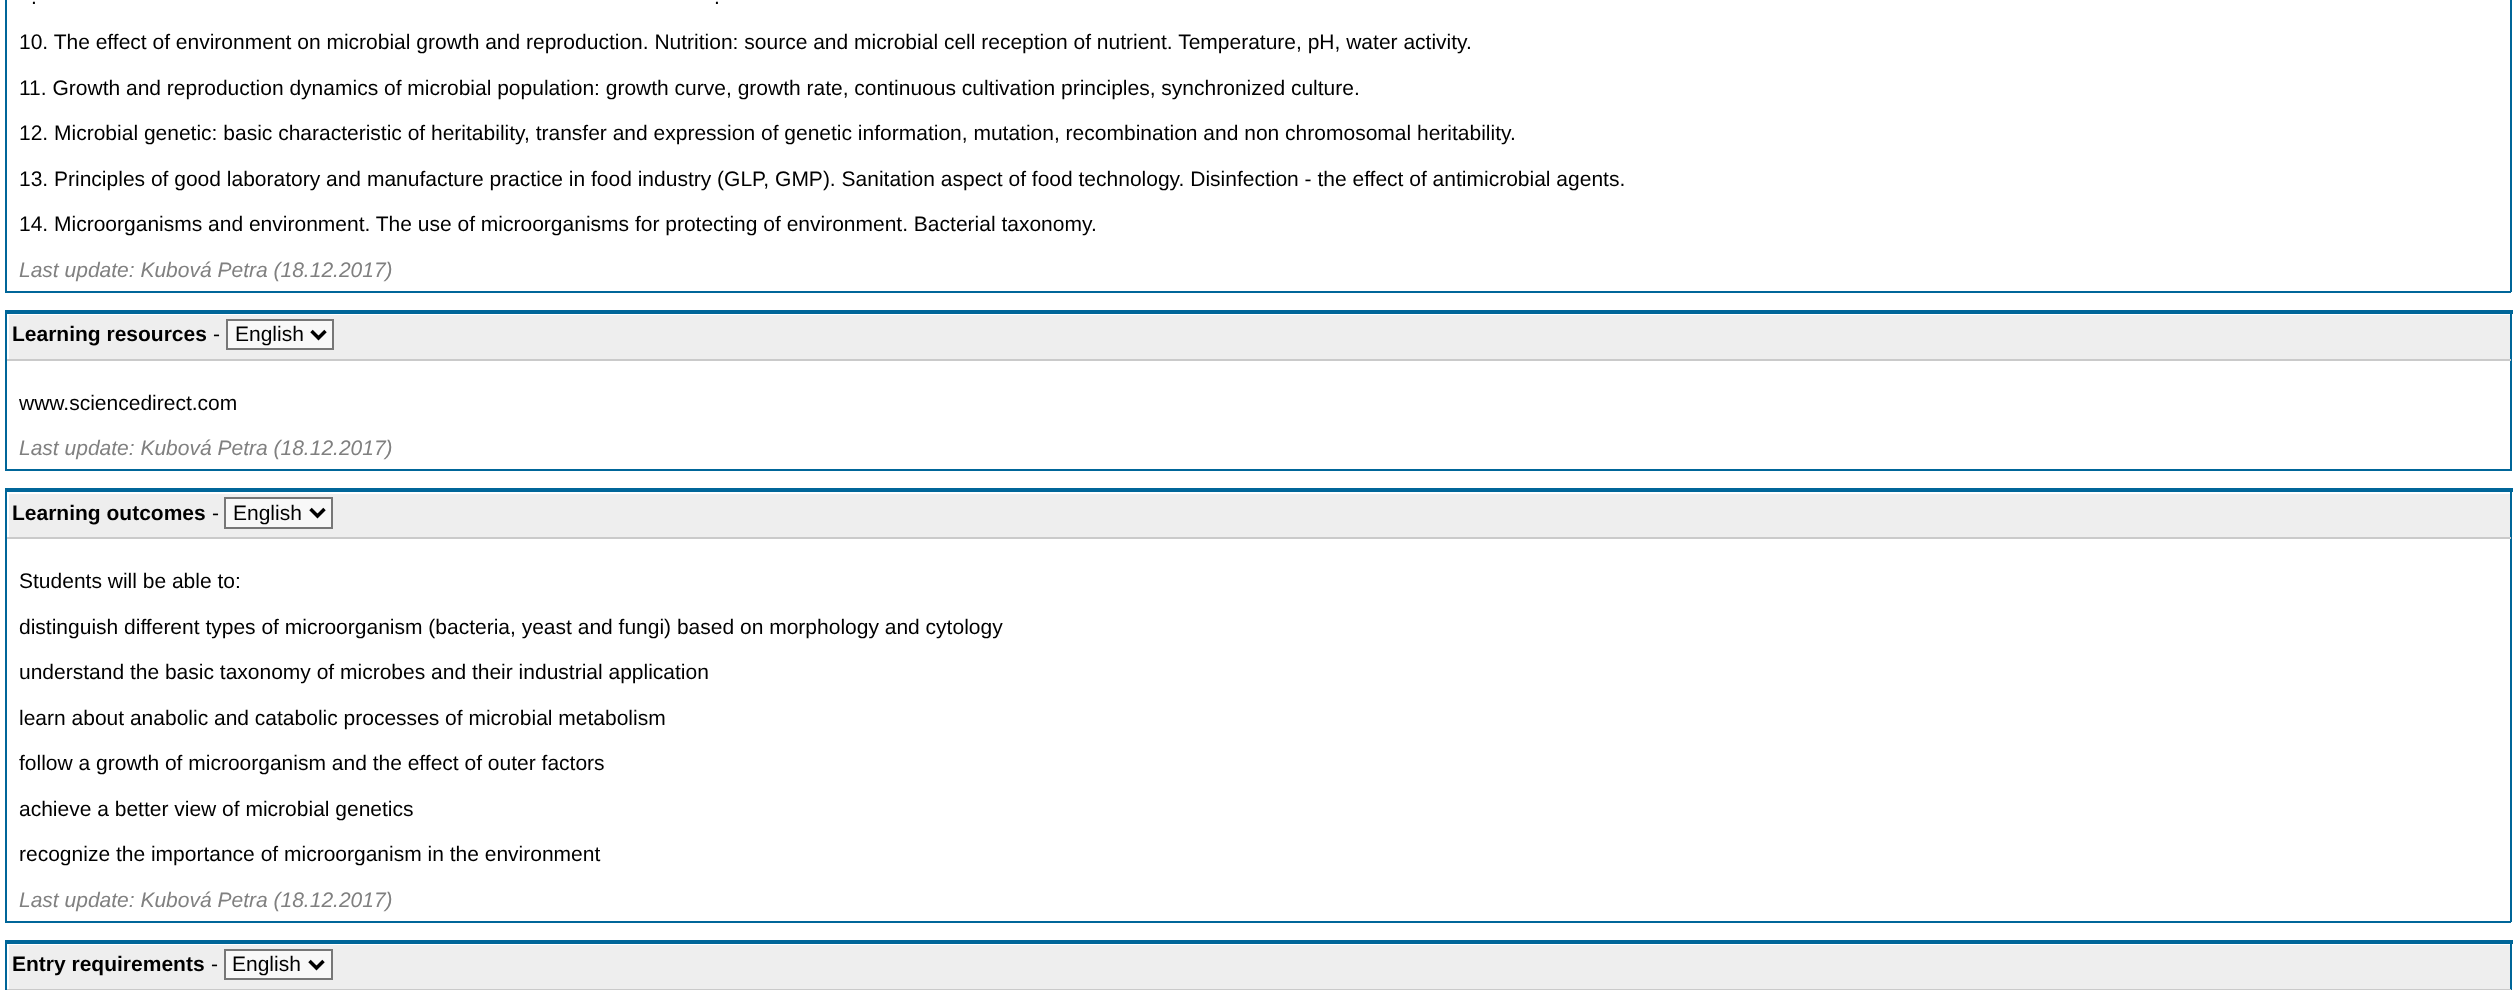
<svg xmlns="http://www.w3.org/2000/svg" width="2515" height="990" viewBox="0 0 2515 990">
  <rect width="100%" height="100%" fill="rgb(255,255,255)"/>
  <rect x="2510" y="0" width="2" height="292" fill="rgb(0,102,153)"/>
  <rect x="5" y="291" width="2506" height="2" fill="rgb(0,102,153)"/>
  <rect x="5" y="0" width="2" height="292" fill="rgb(0,102,153)"/>
  <g font-family="Liberation Sans" font-size="21" fill="rgb(0,0,0)">
    <text x="31" y="4">.</text>
    <text x="714" y="4">.</text>
    <text x="19" y="49">10. The effect of environment on microbial growth and reproduction. Nutrition: source and microbial cell reception of nutrient. Temperature, pH, water activity.</text>
    <text x="19" y="95">11. Growth and reproduction dynamics of microbial population: growth curve, growth rate, continuous cultivation principles, synchronized culture.</text>
    <text x="19" y="140">12. Microbial genetic: basic characteristic of heritability, transfer and expression of genetic information, mutation, recombination and non chromosomal heritability.</text>
    <text x="19" y="186">13. Principles of good laboratory and manufacture practice in food industry (GLP, GMP). Sanitation aspect of food technology. Disinfection - the effect of antimicrobial agents.</text>
    <text x="19" y="231">14. Microorganisms and environment. The use of microorganisms for protecting of environment. Bacterial taxonomy.</text>
  </g>
  <text x="19" y="277" font-family="Liberation Sans" font-size="21" font-style="italic" fill="rgb(128,128,128)">Last update: Kubová Petra (18.12.2017)</text>
  <rect x="9" y="315" width="2501" height="44" fill="rgb(238,238,238)"/>
  <rect x="2510" y="312" width="2" height="159" fill="rgb(0,102,153)"/>
  <rect x="5" y="469" width="2506" height="2" fill="rgb(0,102,153)"/>
  <rect x="5" y="359" width="2" height="112" fill="rgb(0,102,153)"/>
  <rect x="5" y="359" width="2506" height="2" fill="rgb(202,202,202)"/>
  <rect x="5" y="312" width="2" height="49" fill="rgb(0,102,153)"/>
  <rect x="5" y="310" width="2508" height="4" fill="rgb(0,102,153)"/>
  <text x="12" y="341" font-family="Liberation Sans" font-size="21" font-weight="bold" fill="rgb(0,0,0)">Learning resources</text>
  <text x="213" y="341" font-family="Liberation Sans" font-size="21" fill="rgb(0,0,0)">-</text>
  <rect x="227" y="320" width="106" height="29" fill="rgb(248,248,248)" stroke="rgb(119,119,119)" stroke-width="2"/>
  <path d="M311.5 331L318.5 338L325.5 331" fill="none" stroke="rgb(0,0,0)" stroke-width="3.5"/>
  <g font-family="Liberation Sans" font-size="21" fill="rgb(0,0,0)">
    <text x="235" y="341">English</text>
    <text x="19" y="410">www.sciencedirect.com</text>
  </g>
  <text x="19" y="455" font-family="Liberation Sans" font-size="21" font-style="italic" fill="rgb(128,128,128)">Last update: Kubová Petra (18.12.2017)</text>
  <rect x="9" y="494" width="2501" height="43" fill="rgb(238,238,238)"/>
  <rect x="2510" y="490" width="2" height="432" fill="rgb(0,102,153)"/>
  <rect x="5" y="921" width="2506" height="2" fill="rgb(0,102,153)"/>
  <rect x="5" y="537" width="2" height="385" fill="rgb(0,102,153)"/>
  <rect x="5" y="537" width="2506" height="2" fill="rgb(202,202,202)"/>
  <rect x="5" y="490" width="2" height="49" fill="rgb(0,102,153)"/>
  <rect x="5" y="488" width="2508" height="4" fill="rgb(0,102,153)"/>
  <text x="12" y="520" font-family="Liberation Sans" font-size="21" font-weight="bold" fill="rgb(0,0,0)">Learning outcomes</text>
  <text x="212" y="520" font-family="Liberation Sans" font-size="21" fill="rgb(0,0,0)">-</text>
  <rect x="225" y="498" width="107" height="30" fill="rgb(248,248,248)" stroke="rgb(119,119,119)" stroke-width="2"/>
  <path d="M310.5 509L317.5 516L324.5 509" fill="none" stroke="rgb(0,0,0)" stroke-width="3.5"/>
  <g font-family="Liberation Sans" font-size="21" fill="rgb(0,0,0)">
    <text x="233" y="520">English</text>
    <text x="19" y="588">Students will be able to:</text>
    <text x="19" y="634">distinguish different types of microorganism (bacteria, yeast and fungi) based on morphology and cytology</text>
    <text x="19" y="679">understand the basic taxonomy of microbes and their industrial application</text>
    <text x="19" y="725">learn about anabolic and catabolic processes of microbial metabolism</text>
    <text x="19" y="770">follow a growth of microorganism and the effect of outer factors</text>
    <text x="19" y="816">achieve a better view of microbial genetics</text>
    <text x="19" y="861">recognize the importance of microorganism in the environment</text>
  </g>
  <text x="19" y="907" font-family="Liberation Sans" font-size="21" font-style="italic" fill="rgb(128,128,128)">Last update: Kubová Petra (18.12.2017)</text>
  <rect x="9" y="945" width="2501" height="44" fill="rgb(238,238,238)"/>
  <rect x="2510" y="942" width="2" height="48" fill="rgb(0,102,153)"/>
  <rect x="5" y="989" width="2506" height="1" fill="rgb(202,202,202)"/>
  <rect x="5" y="942" width="2" height="48" fill="rgb(0,102,153)"/>
  <rect x="5" y="940" width="2508" height="4" fill="rgb(0,102,153)"/>
  <text x="12" y="971" font-family="Liberation Sans" font-size="21" font-weight="bold" fill="rgb(0,0,0)">Entry requirements</text>
  <text x="211" y="971" font-family="Liberation Sans" font-size="21" fill="rgb(0,0,0)">-</text>
  <rect x="225" y="950" width="107" height="29" fill="rgb(248,248,248)" stroke="rgb(119,119,119)" stroke-width="2"/>
  <path d="M309.5 961L316.5 968L323.5 961" fill="none" stroke="rgb(0,0,0)" stroke-width="3.5"/>
  <text x="232" y="971" font-family="Liberation Sans" font-size="21" fill="rgb(0,0,0)">English</text>
</svg>
